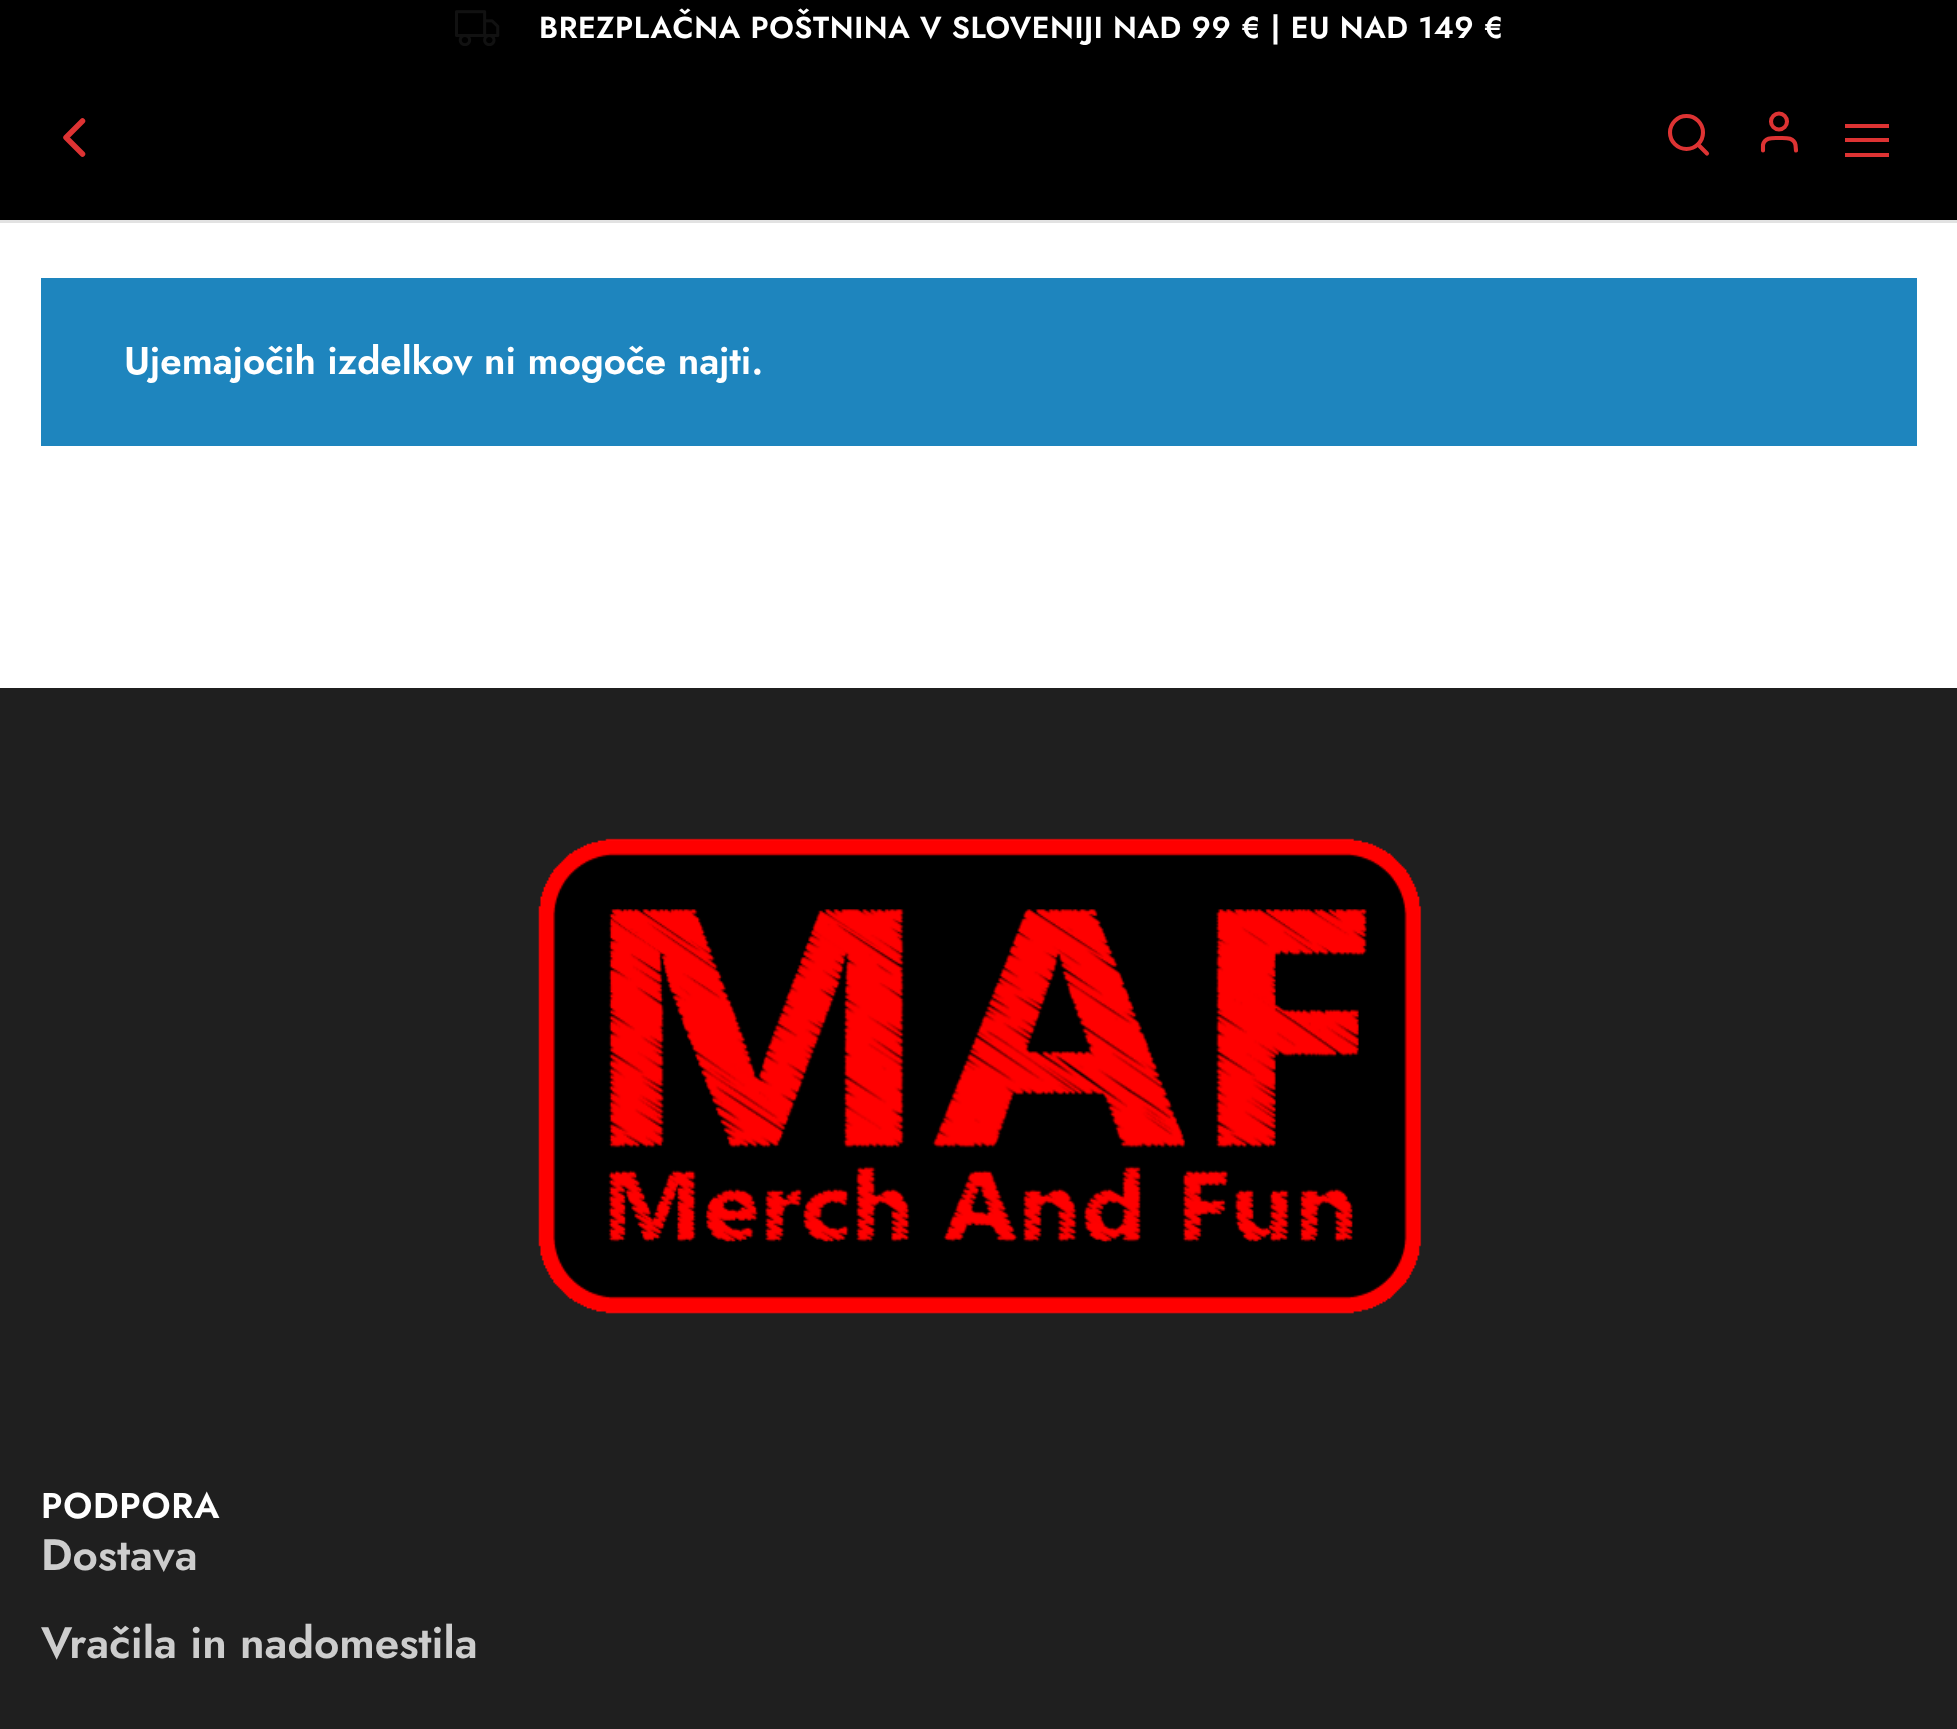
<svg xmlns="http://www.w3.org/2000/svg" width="1957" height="1729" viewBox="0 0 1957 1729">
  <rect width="100%" height="100%" fill="rgb(255,255,255)"/>
  <rect x="0" y="0" width="1957" height="220" fill="rgb(0,0,0)"/>
  <image x="455" y="10" width="45" height="36" href="pic1.png"/>
  <text x="539" y="38" font-family="Jost" font-size="30.25" font-weight="600" letter-spacing="0.6" fill="rgb(255,255,255)">BREZPLAČNA POŠTNINA V SLOVENIJI NAD 99 € | EU NAD 149 €</text>
  <rect x="0" y="220" width="1957" height="3" fill="rgb(226,226,226)"/>
  <path d="M82.5 154L66 137.5L82.5 121" fill="none" stroke="rgb(221,51,51)" stroke-width="5.5" stroke-linecap="round" stroke-linejoin="round"/>
  <circle cx="1686.5" cy="132.5" r="16.5" fill="none" stroke="rgb(221,51,51)" stroke-width="4.1"/>
  <path d="M1707 153.5L1698 144.5" fill="none" stroke="rgb(221,51,51)" stroke-width="4.1" stroke-linecap="round" stroke-linejoin="round"/>
  <path d="M1796 150.5L1795.5 145C1794 137 1785.5 138 1779 138C1773 138 1764.5 137 1763 145V150.5" fill="none" stroke="rgb(221,51,51)" stroke-width="4.1" stroke-linecap="round" stroke-linejoin="round"/>
  <circle cx="1779" cy="121.5" r="8" fill="none" stroke="rgb(221,51,51)" stroke-width="4.1"/>
  <rect x="1845" y="124" width="44" height="4" fill="rgb(221,51,51)"/>
  <rect x="1845" y="138" width="44" height="4" fill="rgb(221,51,51)"/>
  <rect x="1845" y="153" width="44" height="4" fill="rgb(221,51,51)"/>
  <rect x="41" y="278" width="1876" height="168" fill="rgb(30,133,190)"/>
  <text x="124" y="374" font-family="Jost" font-size="38.5" font-weight="600" fill="rgb(255,255,255)">Ujemajočih izdelkov ni mogoče najti.</text>
  <rect x="0" y="688" width="1957" height="1041" fill="rgb(31,31,31)"/>
  <image x="538" y="838" width="884" height="476" href="pic2.png"/>
  <text x="41" y="1518" font-family="Jost" font-size="35.75" font-weight="600" letter-spacing="0.75" fill="rgb(255,255,255)">PODPORA</text>
  <g font-family="Jost" font-size="44" font-weight="600" fill="rgb(205,205,205)">
    <text x="41" y="1570">Dostava</text>
    <text x="41" y="1658">Vračila in nadomestila</text>
  </g>
</svg>
